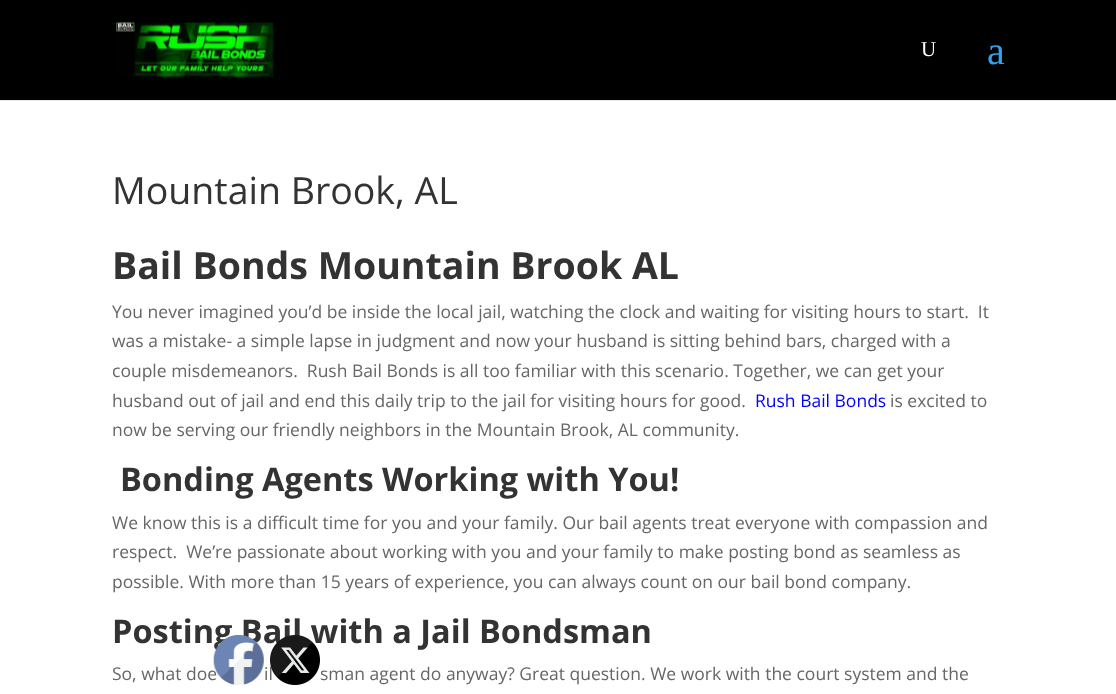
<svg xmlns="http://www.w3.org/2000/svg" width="1116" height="694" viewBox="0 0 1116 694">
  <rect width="100%" height="100%" fill="rgb(255,255,255)"/>
  <rect x="0" y="100" width="1116" height="1" fill="rgb(230,230,230)"/>
  <rect x="0" y="0" width="1116" height="100" fill="rgb(0,0,0)"/>
  <image x="116" y="22" width="158" height="56" href="pic1.png"/>
  <text x="921" y="56" font-family="Liberation Serif" font-size="21" fill="rgb(255,255,255)">U</text>
  <text x="987" y="64" font-family="Liberation Serif" font-size="40" fill="rgb(46,163,242)">a</text>
  <text x="112" y="204" font-family="Open Sans" font-size="37.5" fill="rgb(51,51,51)">Mountain Brook, AL</text>
  <text x="112" y="279" font-family="Open Sans" font-size="37.5" font-weight="bold" fill="rgb(51,51,51)">Bail Bonds Mountain Brook AL</text>
  <g font-family="Open Sans" font-size="17.5" fill="rgb(102,102,102)">
    <text xml:space="preserve"><tspan x="112" y="318">You never imagined you’d be inside the local jail, watching the clock and waiting for visiting hours to start.  It</tspan><tspan x="112" y="347">was a mistake- a simple lapse in judgment and now your husband is sitting behind bars, charged with a</tspan><tspan x="112" y="377">couple misdemeanors.  Rush Bail Bonds is all too familiar with this scenario. Together, we can get your</tspan><tspan x="112" y="407">husband out of jail and end this daily trip to the jail for visiting hours for good.</tspan></text>
  </g>
  <text x="755" y="407" font-family="Open Sans" font-size="17.5" fill="rgb(0,0,255)">Rush Bail Bonds</text>
  <g font-family="Open Sans" font-size="17.5" fill="rgb(102,102,102)">
    <text x="890" y="407">is excited to</text>
    <text x="112" y="436">now be serving our friendly neighbors in the Mountain Brook, AL community.</text>
  </g>
  <text x="120" y="491" font-family="Open Sans" font-size="32.5" font-weight="bold" fill="rgb(51,51,51)">Bonding Agents Working with You!</text>
  <g font-family="Open Sans" font-size="17.5" fill="rgb(102,102,102)">
    <text xml:space="preserve"><tspan x="112" y="529">We know this is a difficult time for you and your family. Our bail agents treat everyone with compassion and</tspan><tspan x="112" y="558">respect.  We’re passionate about working with you and your family to make posting bond as seamless as</tspan><tspan x="112" y="588">possible. With more than 15 years of experience, you can always count on our bail bond company.</tspan></text>
  </g>
  <text x="112" y="643" font-family="Open Sans" font-size="32.5" font-weight="bold" fill="rgb(51,51,51)">Posting Bail with a Jail Bondsman</text>
  <g font-family="Open Sans" font-size="17.5" fill="rgb(102,102,102)">
    <text x="112" y="680">So, what doe</text>
    <text x="264" y="680">il</text>
    <text x="320" y="680">sman agent do anyway? Great question. We work with the court system and the</text>
  </g>
  <image x="213" y="635" width="51" height="50" href="pic2.png"/>
  <image x="270" y="635" width="50" height="50" href="pic3.png"/>
</svg>
